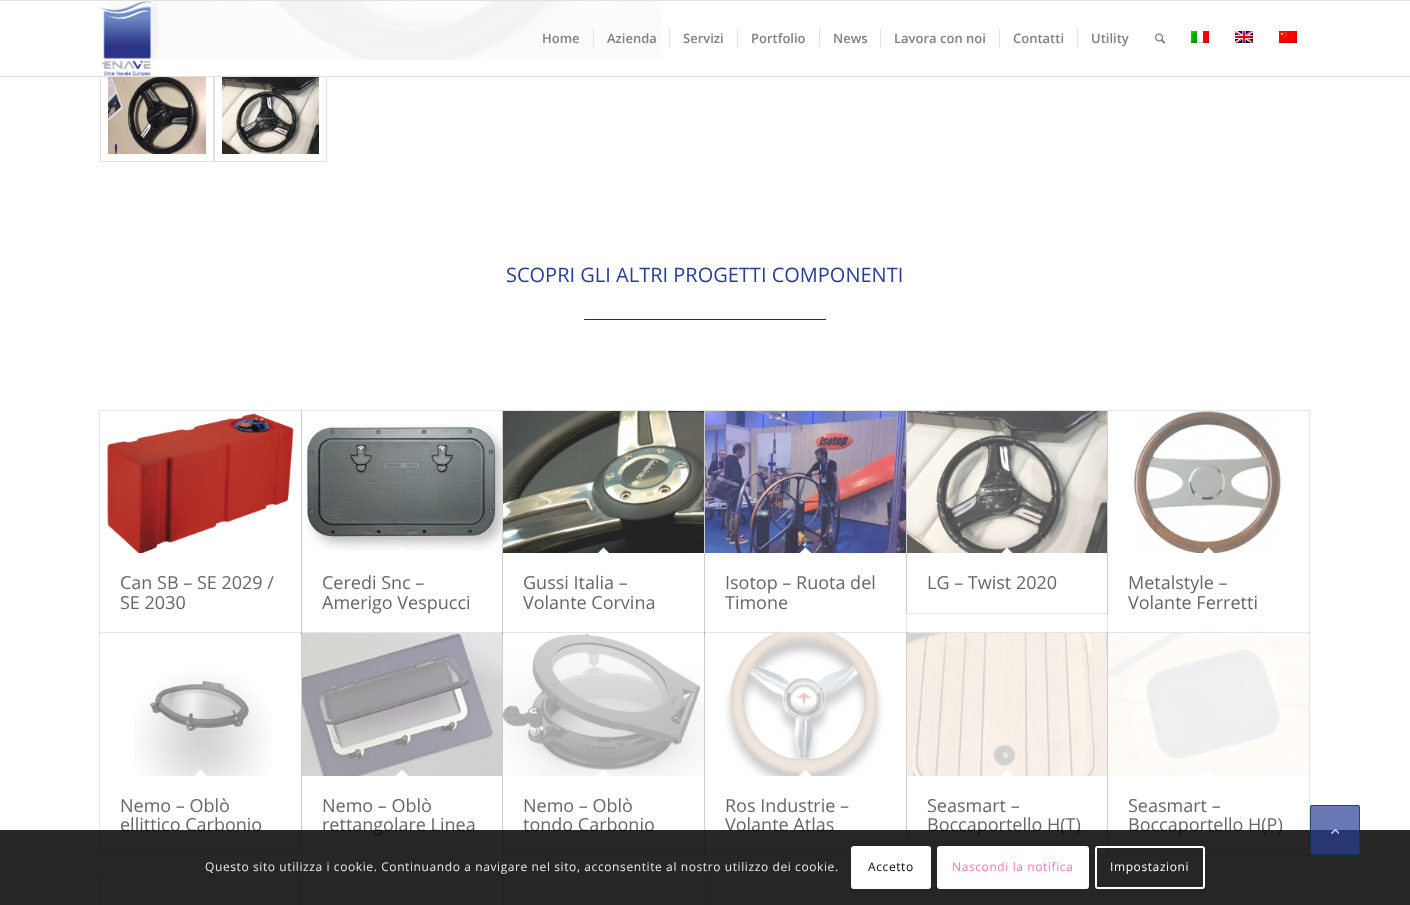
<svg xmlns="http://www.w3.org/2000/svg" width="1410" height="905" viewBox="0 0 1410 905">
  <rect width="100%" height="100%" fill="rgb(255,255,255)"/>
  <rect x="100.5" y="-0.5" width="568" height="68" fill="none" stroke="rgb(225,225,225)"/>
  <image x="108" y="1" width="553" height="59" href="pic6.png"/>
  <rect x="100.5" y="67.5" width="113" height="94" fill="none" stroke="rgb(225,225,225)"/>
  <image x="108" y="75" width="98" height="79" href="pic7.png"/>
  <rect x="214.5" y="67.5" width="112" height="94" fill="none" stroke="rgb(225,225,225)"/>
  <image x="222" y="75" width="97" height="79" href="pic8.png"/>
  <rect x="100" y="1" width="569" height="75" fill="rgba(255,255,255,0.95)"/>
  <rect x="0" y="0" width="1410" height="1" fill="rgb(225,225,225)"/>
  <rect x="0" y="76" width="1410" height="1" fill="rgb(225,225,225)"/>
  <image x="100" y="1" width="52" height="75" href="pic1.png"/>
  <g font-family="Open Sans" font-size="13" font-weight="600" fill="rgb(128,128,128)">
    <text x="542" y="43">Home</text>
    <text x="607" y="43">Azienda</text>
  </g>
  <rect x="593" y="29" width="1" height="18" fill="rgb(225,225,225)"/>
  <text x="683" y="43" font-family="Open Sans" font-size="13" font-weight="600" fill="rgb(128,128,128)">Servizi</text>
  <rect x="669" y="29" width="1" height="18" fill="rgb(225,225,225)"/>
  <text x="751" y="43" font-family="Open Sans" font-size="13" font-weight="600" fill="rgb(128,128,128)">Portfolio</text>
  <rect x="737" y="29" width="1" height="18" fill="rgb(225,225,225)"/>
  <text x="833" y="43" font-family="Open Sans" font-size="13" font-weight="600" fill="rgb(128,128,128)">News</text>
  <rect x="819" y="29" width="1" height="18" fill="rgb(225,225,225)"/>
  <text x="894" y="43" font-family="Open Sans" font-size="13" font-weight="600" fill="rgb(128,128,128)">Lavora con noi</text>
  <rect x="880" y="29" width="1" height="18" fill="rgb(225,225,225)"/>
  <text x="1013" y="43" font-family="Open Sans" font-size="13" font-weight="600" fill="rgb(128,128,128)">Contatti</text>
  <rect x="999" y="29" width="1" height="18" fill="rgb(225,225,225)"/>
  <text x="1091" y="43" font-family="Open Sans" font-size="13" font-weight="600" fill="rgb(128,128,128)">Utility</text>
  <rect x="1077" y="29" width="1" height="18" fill="rgb(225,225,225)"/>
  <image x="1155" y="33" width="10" height="11" href="pic2.png"/>
  <image x="1191" y="31" width="18" height="12" href="pic3.png"/>
  <image x="1235" y="31" width="18" height="12" href="pic4.png"/>
  <image x="1279" y="31" width="18" height="12" href="pic5.png"/>
  <text x="506" y="282" font-family="Open Sans" font-size="20" fill="rgb(38,62,149)">SCOPRI GLI ALTRI PROGETTI COMPONENTI</text>
  <rect x="584" y="319" width="242" height="1" fill="rgb(4,60,77)"/>
  <rect x="99.5" y="410.5" width="202" height="223" fill="none" stroke="rgb(230,230,230)"/>
  <image x="107" y="413" width="187" height="140" href="pic9.png"/>
  <g font-family="Open Sans" font-size="18" fill="rgb(102,102,102)">
    <text>
      <tspan x="120" y="589">Can SB – SE 2029 /</tspan>
      <tspan x="120" y="609">SE 2030</tspan>
    </text>
  </g>
  <rect x="301.5" y="410.5" width="201" height="223" fill="none" stroke="rgba(0,0,0,0.1)"/>
  <image x="305" y="424" width="197" height="127" href="pic10.png"/>
  <path d="M402 547.5L409 554.5L402 561.5L395 554.5Z" fill="rgb(255,255,255)"/>
  <g font-family="Open Sans" font-size="18" fill="rgb(102,102,102)">
    <text>
      <tspan x="322" y="589">Ceredi Snc –</tspan>
      <tspan x="322" y="609">Amerigo Vespucci</tspan>
    </text>
  </g>
  <rect x="502.5" y="410.5" width="202" height="223" fill="none" stroke="rgba(0,0,0,0.1)"/>
  <image x="503" y="411" width="201" height="142" href="pic11.png"/>
  <path d="M603.5 547.5L610.5 554.5L603.5 561.5L596.5 554.5Z" fill="rgb(255,255,255)"/>
  <g font-family="Open Sans" font-size="18" fill="rgb(102,102,102)">
    <text>
      <tspan x="523" y="589">Gussi Italia –</tspan>
      <tspan x="523" y="609">Volante Corvina</tspan>
    </text>
  </g>
  <rect x="704.5" y="410.5" width="202" height="223" fill="none" stroke="rgba(0,0,0,0.1)"/>
  <image x="705" y="411" width="201" height="142" href="pic12.png"/>
  <path d="M805.5 547.5L812.5 554.5L805.5 561.5L798 554.5Z" fill="rgb(255,255,255)"/>
  <g font-family="Open Sans" font-size="18" fill="rgb(102,102,102)">
    <text>
      <tspan x="725" y="589">Isotop – Ruota del</tspan>
      <tspan x="725" y="609">Timone</tspan>
    </text>
  </g>
  <rect x="906.5" y="410.5" width="201" height="203" fill="none" stroke="rgba(0,0,0,0.1)"/>
  <image x="907" y="411" width="200" height="142" href="pic13.png"/>
  <path d="M1007 547.5L1014 554.5L1007 561.5L1000 554.5Z" fill="rgb(255,255,255)"/>
  <text x="927" y="589" font-family="Open Sans" font-size="18" fill="rgb(102,102,102)">LG – Twist 2020</text>
  <rect x="1107.5" y="410.5" width="202" height="223" fill="none" stroke="rgba(0,0,0,0.1)"/>
  <image x="1131" y="411" width="152" height="142" href="pic14.png"/>
  <path d="M1208.5 547.5L1215.5 554.5L1208.5 561.5L1201.5 554.5Z" fill="rgb(255,255,255)"/>
  <g font-family="Open Sans" font-size="18" fill="rgb(102,102,102)">
    <text>
      <tspan x="1128" y="589">Metalstyle –</tspan>
      <tspan x="1128" y="609">Volante Ferretti</tspan>
    </text>
  </g>
  <rect x="99.5" y="632.5" width="202" height="223" fill="none" stroke="rgba(0,0,0,0.1)"/>
  <rect x="100" y="633" width="201" height="1" fill="rgb(255,255,255)"/>
  <image x="134" y="671" width="138" height="105" href="pic15.png"/>
  <path d="M200.5 769.5L207.5 776.5L200.5 784L193.5 776.5Z" fill="rgb(255,255,255)"/>
  <g font-family="Open Sans" font-size="18" fill="rgb(102,102,102)">
    <text>
      <tspan x="120" y="812">Nemo – Oblò</tspan>
      <tspan x="120" y="831">ellittico Carbonio</tspan>
    </text>
  </g>
  <rect x="301.5" y="632.5" width="201" height="243" fill="none" stroke="rgba(0,0,0,0.1)"/>
  <rect x="302" y="633" width="200" height="1" fill="rgb(255,255,255)"/>
  <image x="302" y="633" width="200" height="143" href="pic16.png"/>
  <path d="M402 769.5L409 776.5L402 784L395 776.5Z" fill="rgb(255,255,255)"/>
  <g font-family="Open Sans" font-size="18" fill="rgb(102,102,102)">
    <text>
      <tspan x="322" y="812">Nemo – Oblò</tspan>
      <tspan x="322" y="831">rettangolare Linea</tspan>
    </text>
  </g>
  <rect x="502.5" y="632.5" width="202" height="223" fill="none" stroke="rgba(0,0,0,0.1)"/>
  <rect x="503" y="633" width="201" height="1" fill="rgb(255,255,255)"/>
  <image x="503" y="633" width="201" height="143" href="pic17.png"/>
  <path d="M603.5 769.5L610.5 776.5L603.5 784L596.5 776.5Z" fill="rgb(255,255,255)"/>
  <g font-family="Open Sans" font-size="18" fill="rgb(102,102,102)">
    <text>
      <tspan x="523" y="812">Nemo – Oblò</tspan>
      <tspan x="523" y="831">tondo Carbonio</tspan>
    </text>
  </g>
  <rect x="704.5" y="632.5" width="202" height="223" fill="none" stroke="rgba(0,0,0,0.1)"/>
  <rect x="705" y="633" width="201" height="1" fill="rgb(255,255,255)"/>
  <image x="725" y="633" width="158" height="143" href="pic18.png"/>
  <path d="M805.5 769.5L812.5 776.5L805.5 784L798 776.5Z" fill="rgb(255,255,255)"/>
  <g font-family="Open Sans" font-size="18" fill="rgb(102,102,102)">
    <text>
      <tspan x="725" y="812">Ros Industrie –</tspan>
      <tspan x="725" y="831">Volante Atlas</tspan>
    </text>
  </g>
  <rect x="906.5" y="632.5" width="201" height="223" fill="none" stroke="rgba(0,0,0,0.1)"/>
  <image x="907" y="633" width="200" height="143" href="pic19.png"/>
  <path d="M1007 769.5L1014 776.5L1007 784L1000 776.5Z" fill="rgb(255,255,255)"/>
  <g font-family="Open Sans" font-size="18" fill="rgb(102,102,102)">
    <text>
      <tspan x="927" y="812">Seasmart –</tspan>
      <tspan x="927" y="831">Boccaportello H(T)</tspan>
    </text>
  </g>
  <rect x="1107.5" y="632.5" width="202" height="223" fill="none" stroke="rgba(0,0,0,0.1)"/>
  <rect x="1108" y="633" width="201" height="1" fill="rgb(255,255,255)"/>
  <image x="1108" y="633" width="201" height="143" href="pic20.png"/>
  <path d="M1208.5 769.5L1215.5 776.5L1208.5 784L1201.5 776.5Z" fill="rgb(255,255,255)"/>
  <g font-family="Open Sans" font-size="18" fill="rgb(102,102,102)">
    <text>
      <tspan x="1128" y="812">Seasmart –</tspan>
      <tspan x="1128" y="831">Boccaportello H(P)</tspan>
    </text>
  </g>
  <rect x="99.5" y="874.5" width="202" height="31" fill="none" stroke="rgba(0,0,0,0.1)"/>
  <rect x="301.5" y="874.5" width="201" height="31" fill="none" stroke="rgba(0,0,0,0.1)"/>
  <rect x="302" y="875" width="200" height="1" fill="rgb(255,255,255)"/>
  <rect x="502.5" y="874.5" width="202" height="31" fill="none" stroke="rgba(0,0,0,0.1)"/>
  <rect x="0" y="830" width="1410" height="75" fill="rgba(0,0,0,0.85)"/>
  <rect x="1310" y="805" width="50" height="50" rx="2" fill="rgba(38,62,149,0.7)"/>
  <rect x="1310.5" y="805.5" width="49" height="49" rx="1.5" fill="none" stroke="rgba(4,56,71,0.7)"/>
  <image x="1331" y="829" width="8" height="5" href="pic21.png"/>
  <text x="205" y="871" font-family="Open Sans" font-size="12" letter-spacing="0.6" fill="rgb(233,233,233)">Questo sito utilizza i cookie. Continuando a navigare nel sito, acconsentite al nostro utilizzo dei cookie.</text>
  <rect x="851" y="846" width="80" height="43" rx="3" fill="rgb(255,255,255)"/>
  <text x="868" y="871" font-family="Open Sans" font-size="12" letter-spacing="0.6" fill="rgb(0,0,0)">Accetto</text>
  <rect x="938" y="847" width="150" height="41" rx="2" fill="rgb(255,255,255)" stroke="rgb(255,255,255)" stroke-width="2"/>
  <text x="952" y="871" font-family="Open Sans" font-size="12" letter-spacing="0.6" fill="rgb(255,117,181)">Nascondi la notifica</text>
  <rect x="1096" y="847" width="108" height="41" rx="2" fill="none" stroke="rgb(255,255,255)" stroke-width="2"/>
  <text x="1110" y="871" font-family="Open Sans" font-size="12" letter-spacing="0.6" fill="rgb(255,255,255)">Impostazioni</text>
</svg>
